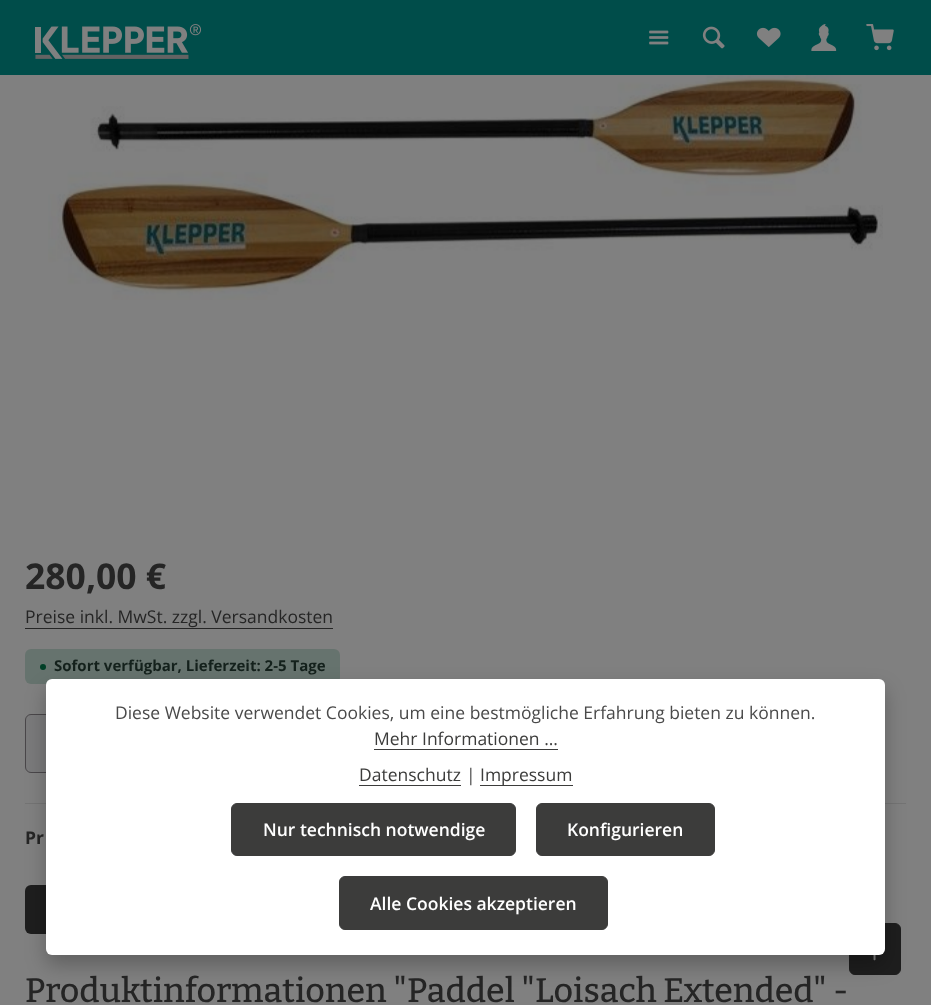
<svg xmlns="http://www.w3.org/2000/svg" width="931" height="1005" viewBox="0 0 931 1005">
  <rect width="100%" height="100%" fill="rgb(128,128,128)"/>
  <rect x="0" y="0" width="931" height="75" fill="rgb(0,77,74)"/>
  <image x="35" y="24" width="166" height="35" href="pic1.png"/>
  <image x="649" y="30" width="20" height="15" href="pic2.png"/>
  <image x="702" y="26" width="23" height="23" href="pic3.png"/>
  <image x="756" y="27" width="25" height="20" href="pic4.png"/>
  <image x="811" y="24" width="26" height="27" href="pic5.png"/>
  <image x="866" y="24" width="28" height="27" href="pic6.png"/>
  <image x="48" y="75" width="835" height="225" href="pic7.png"/>
  <text x="25" y="589" font-family="Open Sans" font-size="35.5" font-weight="bold" fill="rgb(37,37,37)">280,00 €</text>
  <text x="25" y="623" font-family="Open Sans" font-size="17.5" fill="rgb(37,37,37)">Preise inkl. MwSt. zzgl. Versandkosten</text>
  <rect x="25" y="628" width="308" height="1" fill="rgb(37,37,37)"/>
  <text x="54" y="671" font-family="Open Sans" font-size="15" font-weight="bold" fill="rgb(26,26,26)">Sofort verfügbar, Lieferzeit: 2-5 Tage</text>
  <rect x="25" y="649" width="315" height="35" rx="6" fill="rgba(0,63,39,0.2)"/>
  <circle cx="43" cy="667" r="3" fill="rgb(0,63,39)"/>
  <rect x="25.5" y="714.5" width="249" height="58" rx="5.5" fill="rgb(122,122,123)" stroke="rgb(74,71,74)"/>
  <rect x="25" y="803" width="881" height="1" fill="rgb(116,116,116)"/>
  <text x="25" y="844" font-family="Open Sans" font-size="17.5" font-weight="bold" fill="rgb(37,37,37)">Pr</text>
  <rect x="25" y="885" width="163" height="49" rx="6" fill="rgb(30,30,30)"/>
  <text x="25" y="1002" font-family="Bitter" font-size="34" font-weight="500" fill="rgb(37,37,37)">Produktinformationen "Paddel "Loisach Extended" -</text>
  <rect x="849.5" y="923.5" width="51" height="51" rx="5.5" fill="rgb(30,30,30)" stroke="rgb(30,30,30)"/>
  <image x="873" y="955" width="3" height="6" href="pic8.png"/>
  <rect x="46" y="689" width="839" height="276" rx="6" fill="rgba(0,0,0,0.25)" filter="blur(10px)"/>
  <rect x="46" y="679" width="839" height="276" rx="6" fill="rgb(255,255,255)"/>
  <text x="115" y="719" font-family="Open Sans" font-size="17.5" fill="rgb(74,74,74)">Diese Website verwendet Cookies, um eine bestmögliche Erfahrung bieten zu können.</text>
  <text x="374" y="745" font-family="Open Sans" font-size="17.5" fill="rgb(60,60,59)">Mehr Informationen ...</text>
  <rect x="374" y="749" width="184" height="1" fill="rgb(60,60,59)"/>
  <text x="359" y="781" font-family="Open Sans" font-size="17.5" fill="rgb(60,60,59)">Datenschutz</text>
  <rect x="359" y="785" width="102" height="1" fill="rgb(60,60,59)"/>
  <text x="466" y="781" font-family="Open Sans" font-size="17.5" fill="rgb(74,74,74)">|</text>
  <rect x="480" y="785" width="93" height="1" fill="rgb(60,60,59)"/>
  <text x="480" y="781" font-family="Open Sans" font-size="17.5" fill="rgb(60,60,59)">Impressum</text>
  <rect x="231.5" y="803.5" width="284" height="52" rx="5.5" fill="rgb(60,60,59)" stroke="rgb(60,60,59)"/>
  <text x="263" y="836" font-family="Open Sans" font-size="17.5" font-weight="600" fill="rgb(255,255,255)">Nur technisch notwendige</text>
  <rect x="536.5" y="803.5" width="178" height="52" rx="5.5" fill="rgb(60,60,59)" stroke="rgb(60,60,59)"/>
  <text x="567" y="836" font-family="Open Sans" font-size="17.5" font-weight="600" fill="rgb(255,255,255)">Konfigurieren</text>
  <rect x="339.5" y="876.5" width="268" height="53" rx="5.5" fill="rgb(60,60,59)" stroke="rgb(60,60,59)"/>
  <text x="370" y="910" font-family="Open Sans" font-size="17.5" font-weight="600" fill="rgb(255,255,255)">Alle Cookies akzeptieren</text>
</svg>
